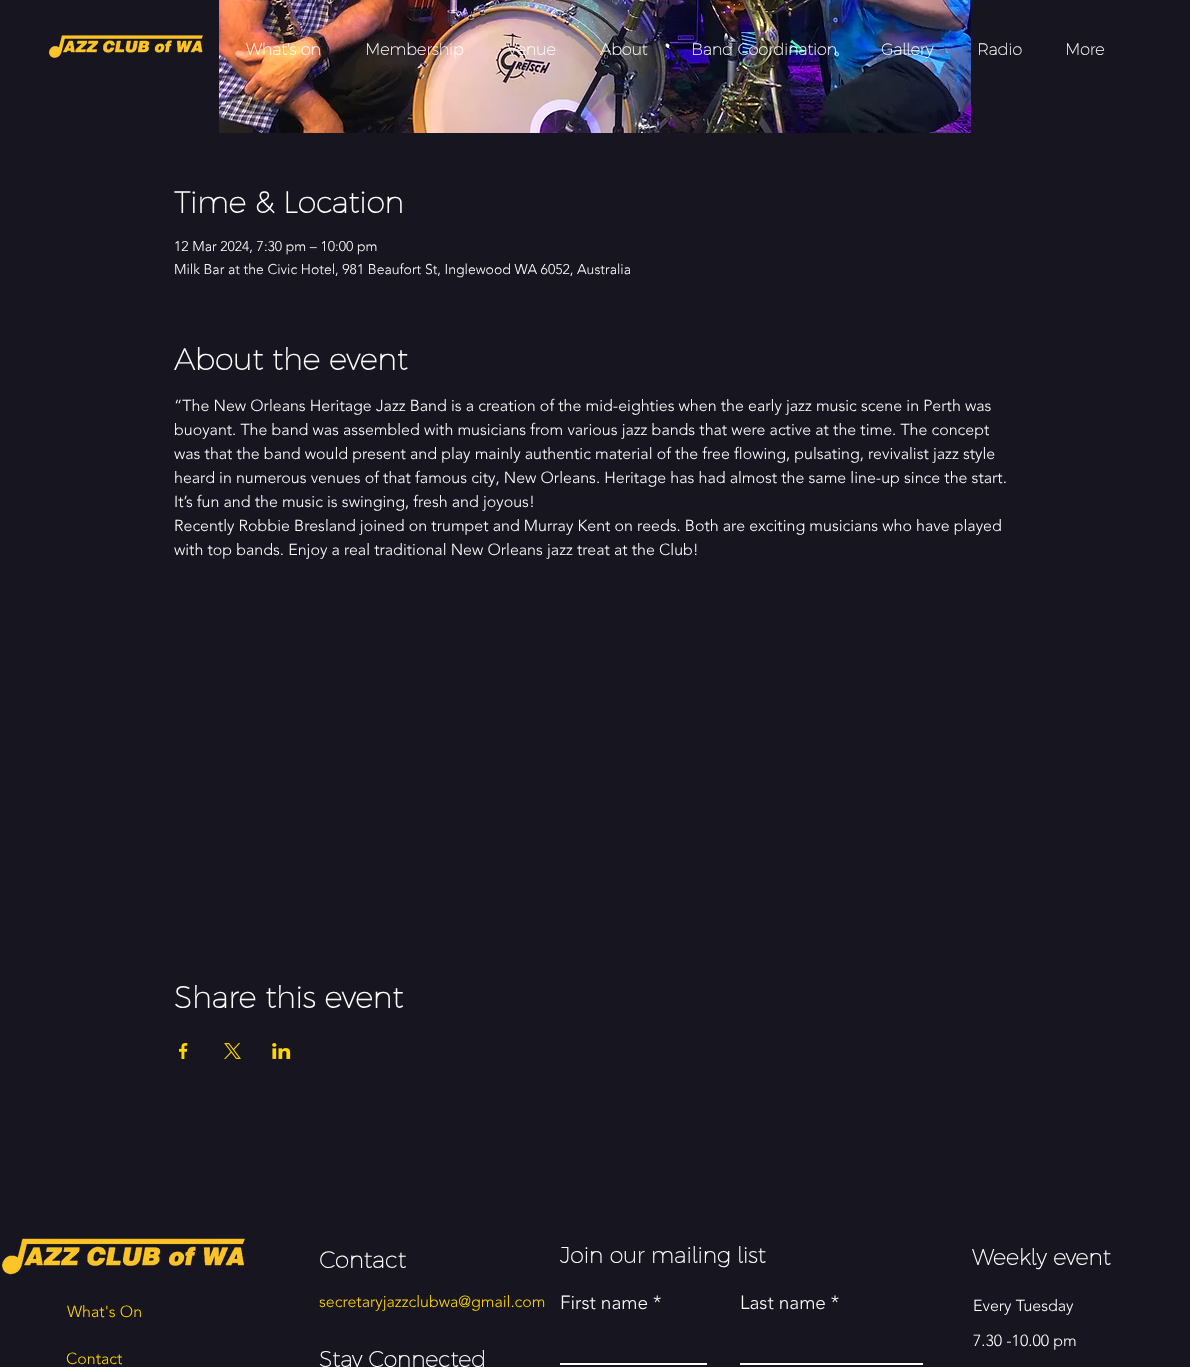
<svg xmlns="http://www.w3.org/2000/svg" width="1190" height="1367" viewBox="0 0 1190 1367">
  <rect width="100%" height="100%" fill="rgb(23,21,31)"/>
  <image x="48" y="35" width="155" height="23" href="pic1.png"/>
  <image x="219" y="0" width="752" height="133" href="pic2.png"/>
  <g font-family="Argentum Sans" font-size="16" font-weight="bold" fill="rgb(255,255,255)">
    <text x="246" y="55">What's on</text>
    <text x="365" y="55">Membership</text>
    <text x="507" y="55">Venue</text>
    <text x="600" y="55">About</text>
    <text x="691" y="55">Band Coordination</text>
    <text x="881" y="55">Gallery</text>
    <text x="977" y="55">Radio</text>
    <text x="1065" y="55">More</text>
  </g>
  <text x="174" y="213" font-family="Argentum Sans" font-size="30" font-weight="bold" fill="rgb(255,255,255)">Time &amp; Location</text>
  <g font-family="'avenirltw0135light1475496'" font-size="14" font-weight="300" fill="rgb(255,255,255)">
    <text>
      <tspan x="174" y="251">12 Mar 2024, 7:30 pm – 10:00 pm</tspan>
      <tspan x="174" y="274">Milk Bar at the Civic Hotel, 981 Beaufort St, Inglewood WA 6052, Australia</tspan>
    </text>
  </g>
  <text x="174" y="370" font-family="Argentum Sans" font-size="30" font-weight="bold" fill="rgb(255,255,255)">About the event</text>
  <g font-family="'avenirltw0135light1475496'" font-size="16" font-weight="300" fill="rgb(255,255,255)">
    <text>
      <tspan x="174" y="411">“The New Orleans Heritage Jazz Band is a creation of the mid-eighties when the early jazz music scene in Perth was</tspan>
      <tspan x="174" y="435">buoyant. The band was assembled with musicians from various jazz bands that were active at the time. The concept</tspan>
      <tspan x="174" y="459">was that the band would present and play mainly authentic material of the free flowing, pulsating, revivalist jazz style</tspan>
      <tspan x="174" y="483">heard in numerous venues of that famous city, New Orleans. Heritage has had almost the same line-up since the start.</tspan>
      <tspan x="174" y="507">It’s fun and the music is swinging, fresh and joyous!</tspan>
      <tspan x="174" y="531">Recently Robbie Bresland joined on trumpet and Murray Kent on reeds. Both are exciting musicians who have played</tspan>
      <tspan x="174" y="555">with top bands. Enjoy a real traditional New Orleans jazz treat at the Club!</tspan>
    </text>
  </g>
  <text x="174" y="1008" font-family="Argentum Sans" font-size="30" font-weight="bold" fill="rgb(255,255,255)">Share this event</text>
  <image x="179" y="1043" width="9" height="16" href="pic3.png"/>
  <image x="224" y="1043" width="17" height="16" href="pic4.png"/>
  <image x="272" y="1043" width="19" height="16" href="pic5.png"/>
  <image x="2" y="1238" width="243" height="37" href="pic6.png"/>
  <g font-family="'avenirltw0135light1475496'" font-size="16" font-weight="300" fill="rgb(255,215,0)">
    <text x="67" y="1317">What's On</text>
    <text x="66" y="1364">Contact</text>
  </g>
  <text x="319" y="1268" font-family="Argentum Sans" font-size="23" font-weight="bold" fill="rgb(255,255,255)">Contact</text>
  <text x="319" y="1307" font-family="'avenirltw0135light1475496'" font-size="16" font-weight="300" fill="rgb(255,215,0)">secretaryjazzclubwa@gmail.com</text>
  <g font-family="Argentum Sans" font-size="22" font-weight="bold" fill="rgb(255,255,255)">
    <text x="319" y="1367">Stay Connected</text>
    <text x="560" y="1263">Join our mailing list</text>
  </g>
  <text x="560" y="1309" font-family="'avenirltw0135light1475496'" font-size="19" font-weight="300" fill="rgb(255,255,255)">First name *</text>
  <rect x="560" y="1363" width="147" height="2" fill="rgb(255,255,255)"/>
  <text x="740" y="1309" font-family="'avenirltw0135light1475496'" font-size="19" font-weight="300" fill="rgb(255,255,255)">Last name *</text>
  <rect x="740" y="1363" width="183" height="2" fill="rgb(255,255,255)"/>
  <text x="972" y="1265" font-family="Argentum Sans" font-size="22" font-weight="bold" fill="rgb(255,255,255)">Weekly event</text>
  <g font-family="'avenirltw0135light1475496'" font-size="16" font-weight="300" fill="rgb(255,255,255)">
    <text x="973" y="1311">Every Tuesday</text>
    <text x="973" y="1346">7.30 -10.00 pm</text>
  </g>
</svg>
